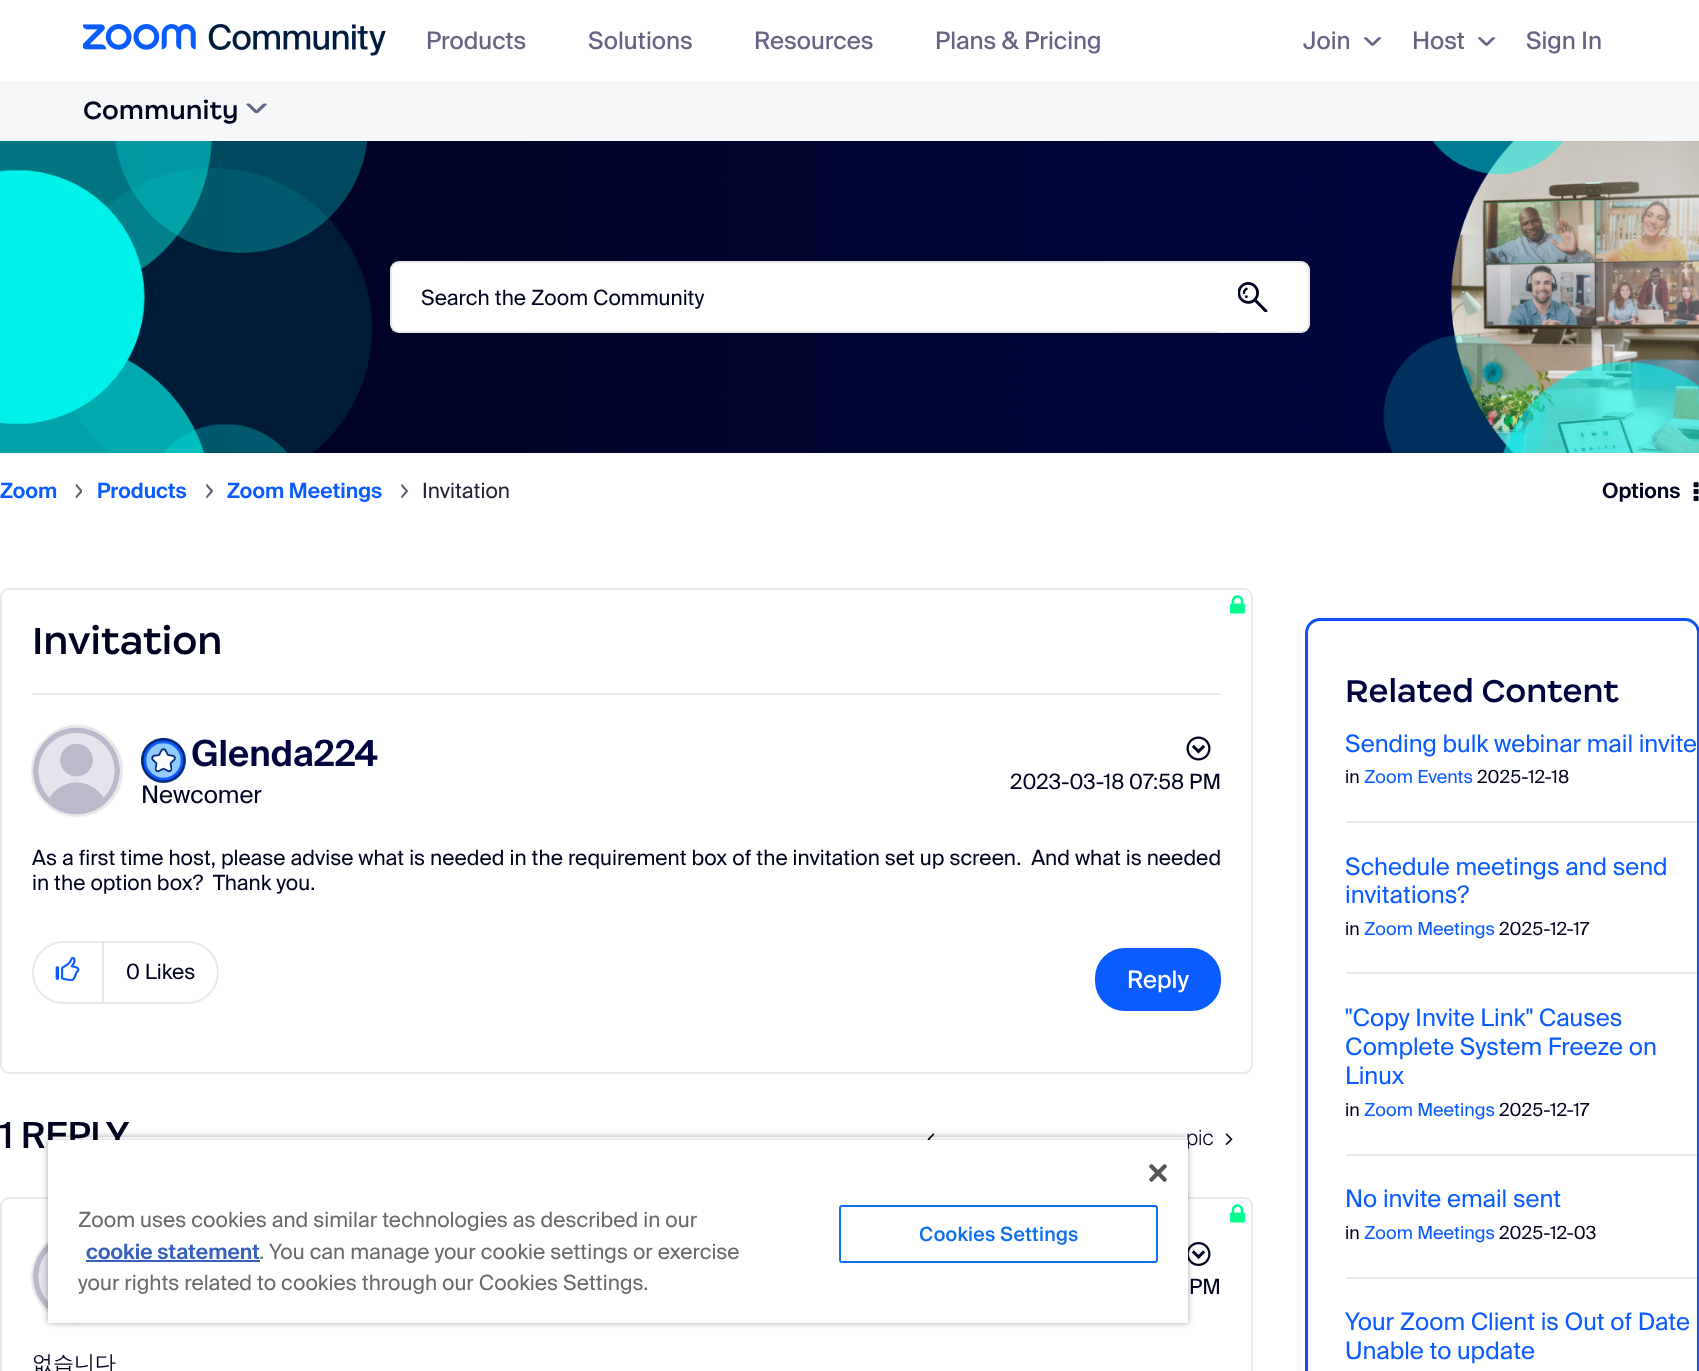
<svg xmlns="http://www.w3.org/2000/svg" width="1699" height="1371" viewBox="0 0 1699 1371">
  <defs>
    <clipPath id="clip1"><path d="M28 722H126V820H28ZM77 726C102 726 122 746 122 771C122 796 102 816 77 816C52 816 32 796 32 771C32 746 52 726 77 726Z" clip-rule="evenodd"/></clipPath>
    <clipPath id="clip2"><path d="M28 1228H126V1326H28ZM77 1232C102 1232 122 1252 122 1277C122 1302 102 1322 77 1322C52 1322 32 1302 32 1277C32 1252 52 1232 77 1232Z" clip-rule="evenodd"/></clipPath>
    <clipPath id="clip3"><path d="M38 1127H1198V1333H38ZM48 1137H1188V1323H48Z" clip-rule="evenodd"/></clipPath>
    <clipPath id="clip4"><rect x="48" y="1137" width="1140" height="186"/></clipPath>
  </defs>
  <rect width="100%" height="100%" fill="rgb(255,255,255)"/>
  <image x="83" y="24" width="303" height="32" href="pic1.png"/>
  <g font-family="'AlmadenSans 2'" font-size="24" fill="rgb(102,100,132)">
    <text x="426" y="49">Products</text>
    <text x="588" y="49">Solutions</text>
    <text x="754" y="49">Resources</text>
    <text x="935" y="49">Plans &amp; Pricing</text>
    <text x="1303" y="49">Join</text>
  </g>
  <image x="1364" y="37" width="18" height="9" href="pic2.png"/>
  <text x="1412" y="49" font-family="'AlmadenSans 2'" font-size="24" fill="rgb(102,100,132)">Host</text>
  <image x="1478" y="37" width="18" height="9" href="pic2.png"/>
  <text x="1526" y="49" font-family="'AlmadenSans 2'" font-size="24" fill="rgb(102,100,132)">Sign In</text>
  <rect x="0" y="81" width="1699" height="60" fill="rgb(246,247,249)"/>
  <text x="83" y="119" font-family="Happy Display" font-size="24" font-weight="600" fill="rgb(0,3,31)">Community</text>
  <image x="246" y="103" width="21" height="11" href="pic3.png"/>
  <image x="0" y="141" width="1699" height="312" href="pic4.png"/>
  <rect x="390" y="261" width="920" height="72" rx="9" fill="rgb(255,255,255)"/>
  <rect x="391" y="262" width="918" height="70" rx="8" fill="none" stroke="rgba(35,35,51,0.1)" stroke-width="2"/>
  <text x="421" y="305" font-family="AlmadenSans" font-size="21" fill="rgb(0,3,31)">Search the Zoom Community</text>
  <path d="M1218 263H1278C1283 263 1287 267 1287 272V323C1287 328 1283 332 1278 332H1218Z" fill="rgb(255,255,255)"/>
  <image x="1238" y="282" width="30" height="30" href="pic5.png"/>
  <text x="0" y="498" font-family="AlmadenSans" font-size="21" font-weight="600" fill="rgb(11,92,255)">Zoom</text>
  <image x="75" y="484" width="7" height="15" href="pic6.png"/>
  <text x="97" y="498" font-family="AlmadenSans" font-size="21" font-weight="600" fill="rgb(11,92,255)">Products</text>
  <image x="206" y="484" width="7" height="15" href="pic7.png"/>
  <text x="227" y="498" font-family="AlmadenSans" font-size="21" font-weight="600" fill="rgb(11,92,255)">Zoom Meetings</text>
  <image x="401" y="484" width="7" height="15" href="pic7.png"/>
  <text x="422" y="498" font-family="AlmadenSans" font-size="21" fill="rgb(35,35,51)">Invitation</text>
  <text x="1602" y="498" font-family="AlmadenSans" font-size="21" font-weight="600" fill="rgb(0,3,31)">Options</text>
  <image x="1693" y="482" width="6" height="19" href="pic8.png"/>
  <rect x="1" y="589" width="1251" height="484" rx="8" fill="none" stroke="rgb(233,233,235)" stroke-width="2"/>
  <image x="1230" y="595" width="15" height="19" href="pic9.png"/>
  <rect x="32" y="693" width="1189" height="2" fill="rgb(233,233,235)"/>
  <text x="32" y="654" font-family="Happy Display" font-size="36" font-weight="600" fill="rgb(0,3,31)">Invitation</text>
  <g clip-path="url(#clip1)">
    <rect x="32" y="726" width="90" height="90" rx="45" fill="rgb(196,196,196)" filter="blur(1px)"/>
  </g>
  <circle cx="77" cy="771" r="44" fill="none" stroke="rgba(35,35,51,0.1)" stroke-width="2"/>
  <image x="33" y="727" width="87" height="88" href="pic10.png"/>
  <image x="141" y="738" width="45" height="45" href="pic11.png"/>
  <text x="191" y="766" font-family="AlmadenSans" font-size="36" font-weight="600" fill="rgb(0,5,61)">Glenda224</text>
  <text x="141" y="803" font-family="AlmadenSans" font-size="24" fill="rgb(0,3,31)">Newcomer</text>
  <image x="1186" y="736" width="25" height="25" href="pic12.png"/>
  <g font-family="AlmadenSans" font-size="21" fill="rgb(0,3,31)">
    <text x="1010" y="789">2023-03-18</text>
    <text x="1129" y="789">07:58 PM</text>
    <text xml:space="preserve"><tspan x="32" y="865">As a first time host, please advise what is needed in the requirement box of the invitation set up screen.  And what is needed</tspan><tspan x="32" y="890">in the option box?  Thank you.</tspan></text>
  </g>
  <rect x="33" y="942" width="185" height="61" rx="30.5" fill="none" stroke="rgb(233,233,235)" stroke-width="2"/>
  <rect x="102" y="942" width="2" height="60" fill="rgba(35,35,51,0.1)"/>
  <image x="55" y="957" width="25" height="24" href="pic13.png"/>
  <text x="126" y="979" font-family="AlmadenSans" font-size="21" fill="rgb(0,3,31)">0 Likes</text>
  <rect x="1096" y="949" width="124" height="61" rx="29" fill="rgb(11,92,255)" stroke="rgb(11,92,255)" stroke-width="2"/>
  <text x="1127" y="988" font-family="'AlmadenSans 2'" font-size="24" fill="rgb(255,255,255)">Reply</text>
  <text x="0" y="1148" font-family="AlmadenSans" font-size="36" font-weight="500" fill="rgb(0,3,31)">1 REPLY</text>
  <image x="927" y="1133" width="8" height="7" href="pic14.png"/>
  <text x="1186" y="1145" font-family="AlmadenSans" font-size="21" font-weight="300" fill="rgb(0,3,31)">pic</text>
  <image x="1225" y="1133" width="8" height="12" href="pic15.png"/>
  <rect x="1" y="1198" width="1251" height="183" rx="8" fill="none" stroke="rgb(233,233,235)" stroke-width="2"/>
  <image x="1230" y="1204" width="15" height="19" href="pic9.png"/>
  <g clip-path="url(#clip2)">
    <rect x="32" y="1232" width="90" height="90" rx="45" fill="rgb(196,196,196)" filter="blur(1px)"/>
  </g>
  <circle cx="77" cy="1277" r="44" fill="none" stroke="rgba(35,35,51,0.1)" stroke-width="2"/>
  <image x="33" y="1243" width="15" height="66" href="pic16.png"/>
  <image x="1188" y="1242" width="23" height="24" href="pic17.png"/>
  <text x="1189" y="1294" font-family="AlmadenSans" font-size="21" fill="rgb(0,3,31)">PM</text>
  <text x="32" y="1370" font-family="WenQuanYi Zen Hei" font-size="21" font-weight="500" fill="rgb(0,3,31)">없습니다</text>
  <rect x="1306.5" y="619.5" width="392" height="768" rx="13.5" fill="none" stroke="rgb(17,82,246)" stroke-width="3"/>
  <text x="1345" y="702" font-family="Happy Display" font-size="30" font-weight="600" fill="rgb(0,5,61)">Related Content</text>
  <rect x="1346" y="821" width="353" height="2" fill="rgba(35,35,51,0.1)"/>
  <text x="1345" y="752" font-family="AlmadenSans" font-size="24" fill="rgb(11,92,255)">Sending bulk webinar mail invite</text>
  <text x="1345" y="783" font-family="AlmadenSans" font-size="18" fill="rgb(0,3,31)">in</text>
  <text x="1364" y="783" font-family="AlmadenSans" font-size="18" fill="rgb(11,92,255)">Zoom Events</text>
  <text x="1477" y="783" font-family="AlmadenSans" font-size="18" fill="rgb(0,3,31)">2025-12-18</text>
  <rect x="1346" y="972" width="353" height="2" fill="rgba(35,35,51,0.1)"/>
  <g font-family="AlmadenSans" font-size="24" fill="rgb(11,92,255)">
    <text>
      <tspan x="1345" y="875">Schedule meetings and send</tspan>
      <tspan x="1345" y="903">invitations?</tspan>
    </text>
  </g>
  <text x="1345" y="935" font-family="AlmadenSans" font-size="18" fill="rgb(0,3,31)">in</text>
  <text x="1364" y="935" font-family="AlmadenSans" font-size="18" fill="rgb(11,92,255)">Zoom Meetings</text>
  <text x="1499" y="935" font-family="AlmadenSans" font-size="18" fill="rgb(0,3,31)">2025-12-17</text>
  <rect x="1346" y="1154" width="353" height="2" fill="rgba(35,35,51,0.1)"/>
  <g font-family="AlmadenSans" font-size="24" fill="rgb(11,92,255)">
    <text>
      <tspan x="1345" y="1026">"Copy Invite Link" Causes</tspan>
      <tspan x="1345" y="1055">Complete System Freeze on</tspan>
      <tspan x="1345" y="1084">Linux</tspan>
    </text>
  </g>
  <text x="1345" y="1116" font-family="AlmadenSans" font-size="18" fill="rgb(0,3,31)">in</text>
  <text x="1364" y="1116" font-family="AlmadenSans" font-size="18" fill="rgb(11,92,255)">Zoom Meetings</text>
  <text x="1499" y="1116" font-family="AlmadenSans" font-size="18" fill="rgb(0,3,31)">2025-12-17</text>
  <rect x="1346" y="1277" width="353" height="2" fill="rgba(35,35,51,0.1)"/>
  <text x="1345" y="1207" font-family="AlmadenSans" font-size="24" fill="rgb(11,92,255)">No invite email sent</text>
  <text x="1345" y="1239" font-family="AlmadenSans" font-size="18" fill="rgb(0,3,31)">in</text>
  <text x="1364" y="1239" font-family="AlmadenSans" font-size="18" fill="rgb(11,92,255)">Zoom Meetings</text>
  <text x="1499" y="1239" font-family="AlmadenSans" font-size="18" fill="rgb(0,3,31)">2025-12-03</text>
  <g font-family="AlmadenSans" font-size="24" fill="rgb(11,92,255)">
    <text>
      <tspan x="1345" y="1330">Your Zoom Client is Out of Date</tspan>
      <tspan x="1345" y="1359">Unable to update</tspan>
    </text>
  </g>
  <g clip-path="url(#clip3)">
    <rect x="48" y="1137" width="1140" height="186" fill="rgba(0,0,0,0.35)" filter="blur(3px)"/>
  </g>
  <g clip-path="url(#clip4)">
    <rect x="48" y="1140" width="1140" height="183" fill="rgba(0,0,0,0.2)" filter="blur(3px)"/>
  </g>
  <rect x="48" y="1140" width="1140" height="183" fill="rgb(255,255,255)"/>
  <image x="1149" y="1164" width="18" height="18" href="pic18.png"/>
  <text x="78" y="1227" font-family="AlmadenSans" font-size="21" fill="rgb(105,105,105)">Zoom uses cookies and similar technologies as described in our</text>
  <text x="86" y="1259" font-family="AlmadenSans" font-size="21" font-weight="600" fill="rgb(56,96,190)">cookie statement</text>
  <rect x="86" y="1260" width="174" height="2" fill="rgb(56,96,190)"/>
  <g font-family="AlmadenSans" font-size="21" fill="rgb(105,105,105)">
    <text x="259" y="1259">. You can manage your cookie settings or exercise</text>
    <text x="78" y="1290">your rights related to cookies through our Cookies Settings.</text>
  </g>
  <rect x="840" y="1206" width="317" height="56" rx="2" fill="none" stroke="rgb(14,113,235)" stroke-width="2"/>
  <text x="919" y="1241" font-family="AlmadenSans" font-size="19.5" font-weight="500" letter-spacing="0.25" fill="rgb(14,113,235)">Cookies Settings</text>
</svg>
